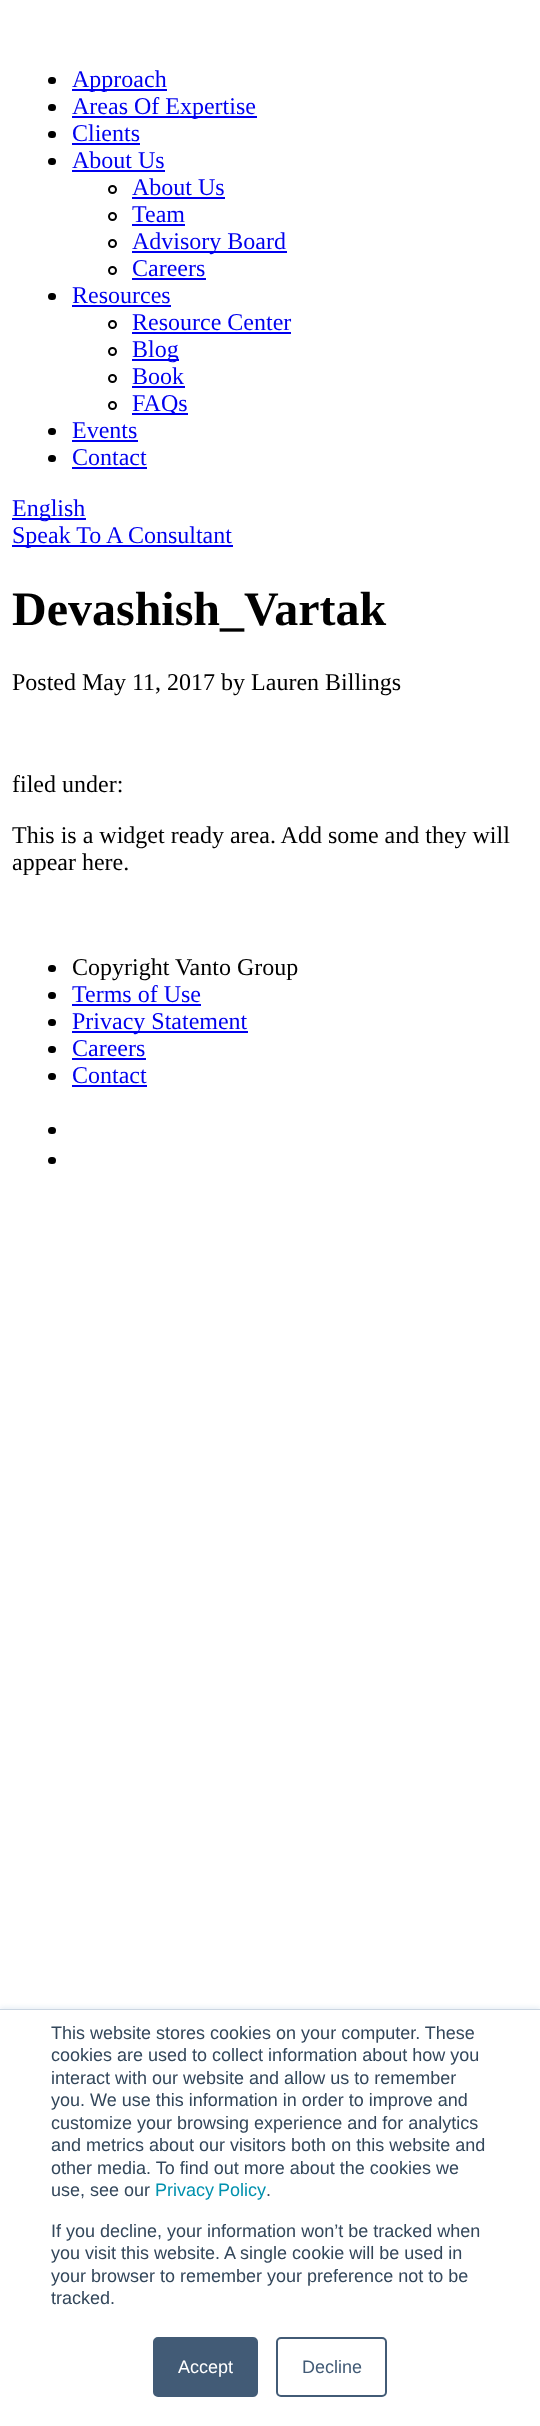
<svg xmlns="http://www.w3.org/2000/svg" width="540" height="2426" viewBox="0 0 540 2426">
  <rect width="100%" height="100%" fill="rgb(255,255,255)"/>
  <rect x="48" y="77" width="8" height="7" rx="3.5" fill="rgb(0,0,0)"/>
  <rect x="72" y="89" width="95" height="2" fill="rgb(0,0,238)"/>
  <text x="72" y="87" font-family="Liberation Serif" font-size="24" fill="rgb(0,0,238)">Approach</text>
  <rect x="48" y="104" width="8" height="7" rx="3.5" fill="rgb(0,0,0)"/>
  <rect x="72" y="116" width="185" height="2" fill="rgb(0,0,238)"/>
  <text x="72" y="114" font-family="Liberation Serif" font-size="24" fill="rgb(0,0,238)">Areas Of Expertise</text>
  <rect x="48" y="131" width="8" height="7" rx="3.5" fill="rgb(0,0,0)"/>
  <text x="72" y="141" font-family="Liberation Serif" font-size="24" fill="rgb(0,0,238)">Clients</text>
  <rect x="72" y="143" width="68" height="2" fill="rgb(0,0,238)"/>
  <rect x="48" y="158" width="8" height="7" rx="3.5" fill="rgb(0,0,0)"/>
  <text x="72" y="168" font-family="Liberation Serif" font-size="24" fill="rgb(0,0,238)">About Us</text>
  <rect x="72" y="170" width="93" height="2" fill="rgb(0,0,238)"/>
  <circle cx="112.5" cy="189.5" r="3.5" fill="none" stroke="rgb(0,0,0)" stroke-width="2"/>
  <text x="132" y="195" font-family="Liberation Serif" font-size="24" fill="rgb(0,0,238)">About Us</text>
  <rect x="132" y="197" width="93" height="2" fill="rgb(0,0,238)"/>
  <circle cx="112.5" cy="216.5" r="3.5" fill="none" stroke="rgb(0,0,0)" stroke-width="2"/>
  <text x="132" y="222" font-family="Liberation Serif" font-size="24" fill="rgb(0,0,238)">Team</text>
  <rect x="132" y="224" width="53" height="2" fill="rgb(0,0,238)"/>
  <circle cx="112.5" cy="243.5" r="3.5" fill="none" stroke="rgb(0,0,0)" stroke-width="2"/>
  <rect x="132" y="251" width="155" height="2" fill="rgb(0,0,238)"/>
  <text x="132" y="249" font-family="Liberation Serif" font-size="24" fill="rgb(0,0,238)">Advisory Board</text>
  <circle cx="112.5" cy="270.5" r="3.5" fill="none" stroke="rgb(0,0,0)" stroke-width="2"/>
  <text x="132" y="276" font-family="Liberation Serif" font-size="24" fill="rgb(0,0,238)">Careers</text>
  <rect x="132" y="278" width="74" height="2" fill="rgb(0,0,238)"/>
  <rect x="48" y="293" width="8" height="7" rx="3.5" fill="rgb(0,0,0)"/>
  <text x="72" y="303" font-family="Liberation Serif" font-size="24" fill="rgb(0,0,238)">Resources</text>
  <rect x="72" y="305" width="99" height="2" fill="rgb(0,0,238)"/>
  <circle cx="112.5" cy="324.5" r="3.5" fill="none" stroke="rgb(0,0,0)" stroke-width="2"/>
  <text x="132" y="330" font-family="Liberation Serif" font-size="24" fill="rgb(0,0,238)">Resource Center</text>
  <rect x="132" y="332" width="159" height="2" fill="rgb(0,0,238)"/>
  <circle cx="112.5" cy="351.5" r="3.5" fill="none" stroke="rgb(0,0,0)" stroke-width="2"/>
  <rect x="132" y="359" width="47" height="2" fill="rgb(0,0,238)"/>
  <text x="132" y="357" font-family="Liberation Serif" font-size="24" fill="rgb(0,0,238)">Blog</text>
  <circle cx="112.5" cy="378.5" r="3.5" fill="none" stroke="rgb(0,0,0)" stroke-width="2"/>
  <text x="132" y="384" font-family="Liberation Serif" font-size="24" fill="rgb(0,0,238)">Book</text>
  <rect x="132" y="386" width="53" height="2" fill="rgb(0,0,238)"/>
  <circle cx="112.5" cy="405.5" r="3.5" fill="none" stroke="rgb(0,0,0)" stroke-width="2"/>
  <rect x="132" y="413" width="56" height="2" fill="rgb(0,0,238)"/>
  <text x="132" y="411" font-family="Liberation Serif" font-size="24" fill="rgb(0,0,238)">FAQs</text>
  <rect x="48" y="428" width="8" height="7" rx="3.5" fill="rgb(0,0,0)"/>
  <text x="72" y="438" font-family="Liberation Serif" font-size="24" fill="rgb(0,0,238)">Events</text>
  <rect x="72" y="440" width="66" height="2" fill="rgb(0,0,238)"/>
  <rect x="48" y="455" width="8" height="7" rx="3.5" fill="rgb(0,0,0)"/>
  <text x="72" y="465" font-family="Liberation Serif" font-size="24" fill="rgb(0,0,238)">Contact</text>
  <rect x="72" y="467" width="75" height="2" fill="rgb(0,0,238)"/>
  <rect x="12" y="518" width="74" height="2" fill="rgb(0,0,238)"/>
  <text x="12" y="516" font-family="Liberation Serif" font-size="24" fill="rgb(0,0,238)">English</text>
  <rect x="12" y="545" width="221" height="2" fill="rgb(0,0,238)"/>
  <text x="12" y="543" font-family="Liberation Serif" font-size="24" fill="rgb(0,0,238)">Speak To A Consultant</text>
  <text x="12" y="625" font-family="Liberation Serif" font-size="48" font-weight="bold" fill="rgb(0,0,0)">Devashish_Vartak</text>
  <g font-family="Liberation Serif" font-size="24" fill="rgb(0,0,0)">
    <text x="12" y="690">Posted May 11, 2017 by Lauren Billings</text>
    <text x="12" y="792">filed under:</text>
    <text>
      <tspan x="12" y="843">This is a widget ready area. Add some and they will</tspan>
      <tspan x="12" y="870">appear here.</tspan>
    </text>
  </g>
  <rect x="48" y="965" width="8" height="7" rx="3.5" fill="rgb(0,0,0)"/>
  <text x="72" y="975" font-family="Liberation Serif" font-size="24" fill="rgb(0,0,0)">Copyright Vanto Group</text>
  <rect x="48" y="992" width="8" height="7" rx="3.5" fill="rgb(0,0,0)"/>
  <text x="72" y="1002" font-family="Liberation Serif" font-size="24" fill="rgb(0,0,238)">Terms of Use</text>
  <rect x="72" y="1004" width="129" height="2" fill="rgb(0,0,238)"/>
  <rect x="48" y="1019" width="8" height="7" rx="3.5" fill="rgb(0,0,0)"/>
  <rect x="72" y="1031" width="176" height="2" fill="rgb(0,0,238)"/>
  <text x="72" y="1029" font-family="Liberation Serif" font-size="24" fill="rgb(0,0,238)">Privacy Statement</text>
  <rect x="48" y="1046" width="8" height="7" rx="3.5" fill="rgb(0,0,0)"/>
  <text x="72" y="1056" font-family="Liberation Serif" font-size="24" fill="rgb(0,0,238)">Careers</text>
  <rect x="72" y="1058" width="74" height="2" fill="rgb(0,0,238)"/>
  <rect x="48" y="1073" width="8" height="7" rx="3.5" fill="rgb(0,0,0)"/>
  <text x="72" y="1083" font-family="Liberation Serif" font-size="24" fill="rgb(0,0,238)">Contact</text>
  <rect x="72" y="1085" width="75" height="2" fill="rgb(0,0,238)"/>
  <rect x="48" y="1127" width="8" height="7" rx="3.5" fill="rgb(0,0,0)"/>
  <rect x="48" y="1157" width="8" height="7" rx="3.5" fill="rgb(0,0,0)"/>
  <rect x="0" y="2007" width="540" height="419" fill="rgb(234,240,246)" filter="blur(2px)"/>
  <rect x="0" y="2009" width="540" height="1" fill="rgb(203,214,226)"/>
  <rect x="0" y="2010" width="540" height="416" fill="rgb(255,255,255)"/>
  <g font-family="Liberation Sans" font-size="18" fill="rgb(51,71,91)">
    <text>
      <tspan x="51" y="2039">This website stores cookies on your computer. These</tspan>
      <tspan x="51" y="2061">cookies are used to collect information about how you</tspan>
      <tspan x="51" y="2084">interact with our website and allow us to remember</tspan>
      <tspan x="51" y="2106">you. We use this information in order to improve and</tspan>
      <tspan x="51" y="2129">customize your browsing experience and for analytics</tspan>
      <tspan x="51" y="2151">and metrics about our visitors both on this website and</tspan>
      <tspan x="51" y="2174">other media. To find out more about the cookies we</tspan>
      <tspan x="51" y="2196">use, see our</tspan>
    </text>
  </g>
  <text x="155" y="2196" word-spacing="-1" font-family="Liberation Sans" font-size="18" fill="rgb(0,145,174)">Privacy Policy</text>
  <g font-family="Liberation Sans" font-size="18" fill="rgb(51,71,91)">
    <text x="266" y="2196">.</text>
    <text>
      <tspan x="51" y="2237">If you decline, your information won’t be tracked when</tspan>
      <tspan x="51" y="2259">you visit this website. A single cookie will be used in</tspan>
      <tspan x="51" y="2282">your browser to remember your preference not to be</tspan>
      <tspan x="51" y="2304">tracked.</tspan>
    </text>
  </g>
  <rect x="154" y="2338" width="103" height="58" rx="4" fill="rgb(66,91,118)" stroke="rgb(66,91,118)" stroke-width="2"/>
  <text x="178" y="2373" font-family="Liberation Sans" font-size="18" fill="rgb(255,255,255)">Accept</text>
  <rect x="277" y="2338" width="109" height="58" rx="4" fill="none" stroke="rgb(66,91,118)" stroke-width="2"/>
  <text x="302" y="2373" font-family="Liberation Sans" font-size="18" fill="rgb(66,91,118)">Decline</text>
</svg>
